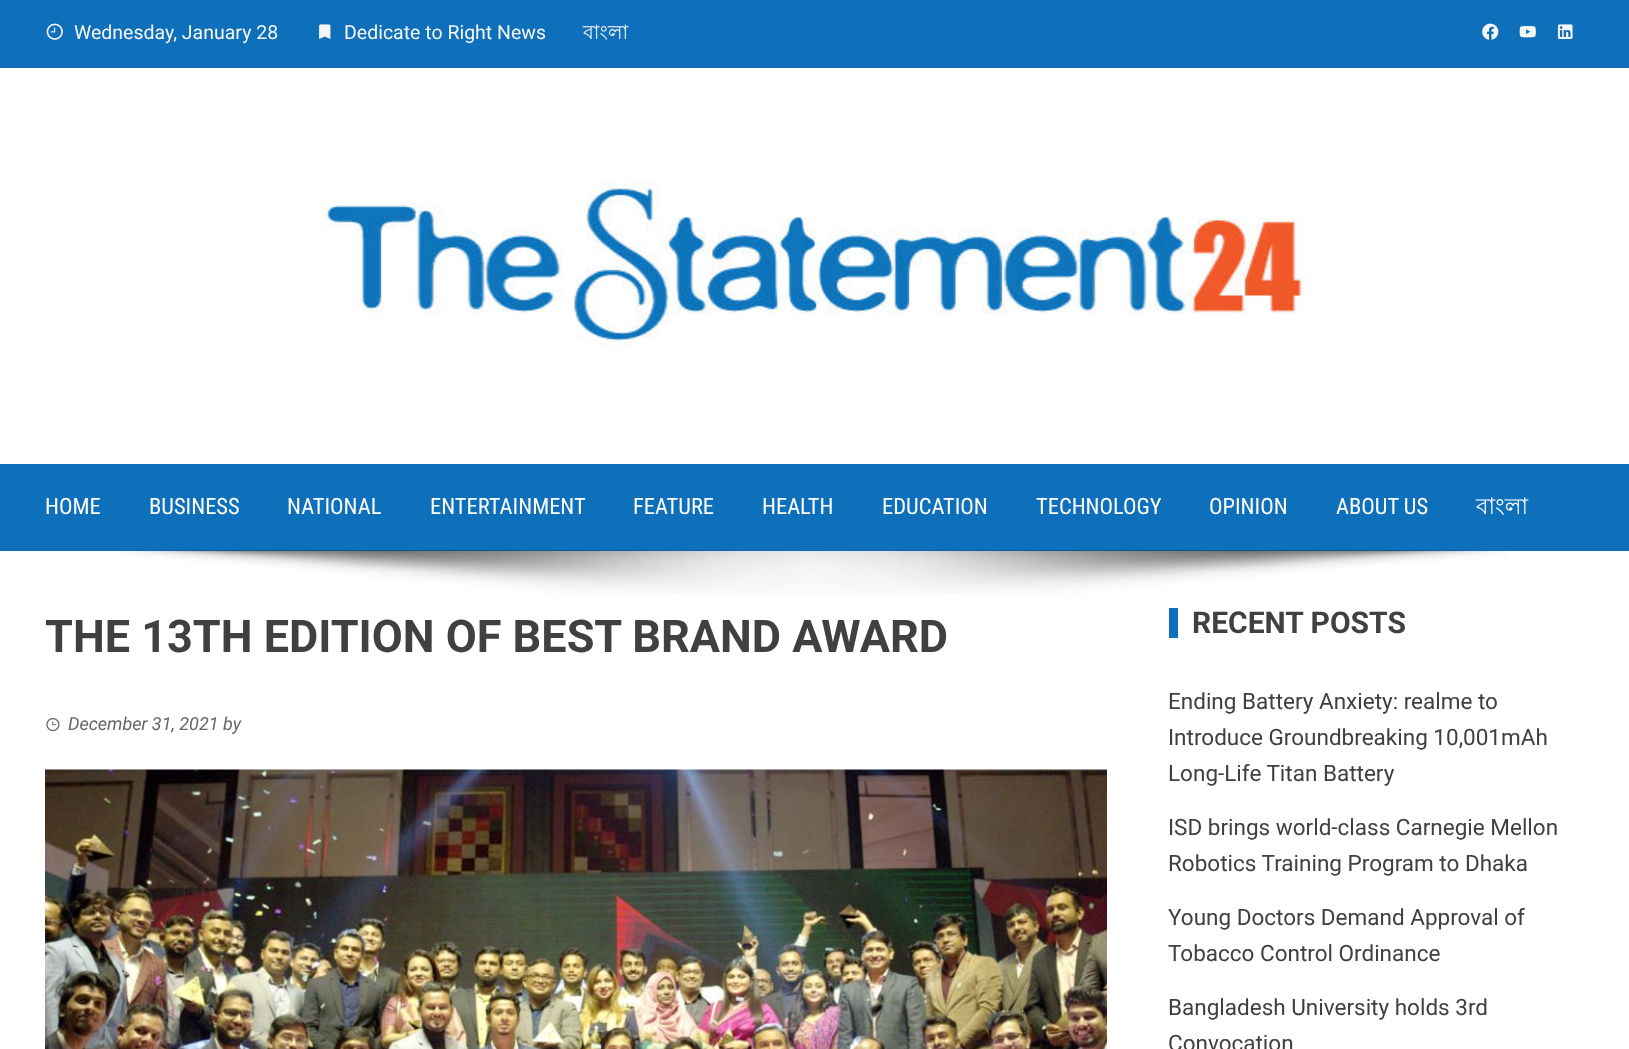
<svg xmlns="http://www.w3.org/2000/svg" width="1629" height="1049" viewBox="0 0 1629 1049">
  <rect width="100%" height="100%" fill="rgb(255,255,255)"/>
  <rect x="0" y="0" width="1629" height="68" fill="rgb(14,111,186)"/>
  <image x="46" y="23" width="17" height="17" href="pic1.png"/>
  <text x="74" y="39" font-family="Roboto" font-size="19.5" fill="rgb(246,246,246)">Wednesday, January 28</text>
  <image x="319" y="24" width="12" height="15" href="pic2.png"/>
  <text x="344" y="39" font-family="Roboto" font-size="19.5" fill="rgb(246,246,246)">Dedicate to Right News</text>
  <text x="583" y="39" font-family="Lohit Bengali" font-size="19.5" fill="rgb(246,246,246)">বাংলা</text>
  <image x="1482" y="23" width="17" height="17" href="pic3.png"/>
  <image x="1519" y="26" width="17" height="12" href="pic4.png"/>
  <image x="1557" y="24" width="16" height="15" href="pic5.png"/>
  <image x="322" y="181" width="985" height="169" href="pic6.png"/>
  <rect x="0" y="464" width="1629" height="87" fill="rgb(14,111,186)"/>
  <g font-family="Roboto Condensed" font-size="22.5" fill="rgb(255,255,255)">
    <text x="45" y="514">HOME</text>
    <text x="149" y="514">BUSINESS</text>
    <text x="287" y="514">NATIONAL</text>
    <text x="430" y="514">ENTERTAINMENT</text>
    <text x="633" y="514">FEATURE</text>
    <text x="762" y="514">HEALTH</text>
    <text x="882" y="514">EDUCATION</text>
    <text x="1036" y="514">TECHNOLOGY</text>
    <text x="1209" y="514">OPINION</text>
    <text x="1336" y="514">ABOUT US</text>
  </g>
  <text x="1476" y="514" font-family="Lohit Bengali" font-size="22.5" fill="rgb(255,255,255)">বাংলা</text>
  <image x="119" y="550" width="1389" height="45" href="pic7.png"/>
  <text x="45" y="652" font-family="Roboto" font-size="45" font-weight="bold" fill="rgb(64,64,64)">THE 13TH EDITION OF BEST BRAND AWARD</text>
  <image x="46" y="718" width="14" height="14" href="pic8.png"/>
  <text x="68" y="730" font-family="Roboto" font-size="18" font-style="italic" fill="rgb(102,102,102)">December 31, 2021 by</text>
  <image x="45" y="769" width="1062" height="280" href="pic9.png"/>
  <rect x="1169" y="608" width="9" height="30" fill="rgb(14,111,186)"/>
  <text x="1192" y="633" font-family="Roboto" font-size="30" font-weight="bold" fill="rgb(64,64,64)">RECENT POSTS</text>
  <g font-family="Roboto" font-size="22.5" fill="rgb(64,64,64)">
    <text>
      <tspan x="1168" y="709">Ending Battery Anxiety: realme to</tspan>
      <tspan x="1168" y="745">Introduce Groundbreaking 10,001mAh</tspan>
      <tspan x="1168" y="781">Long-Life Titan Battery</tspan>
    </text>
    <text>
      <tspan x="1168" y="835">ISD brings world-class Carnegie Mellon</tspan>
      <tspan x="1168" y="871">Robotics Training Program to Dhaka</tspan>
    </text>
    <text>
      <tspan x="1168" y="925">Young Doctors Demand Approval of</tspan>
      <tspan x="1168" y="961">Tobacco Control Ordinance</tspan>
    </text>
    <text>
      <tspan x="1168" y="1015">Bangladesh University holds 3rd</tspan>
      <tspan x="1168" y="1051">Convocation</tspan>
    </text>
  </g>
</svg>
